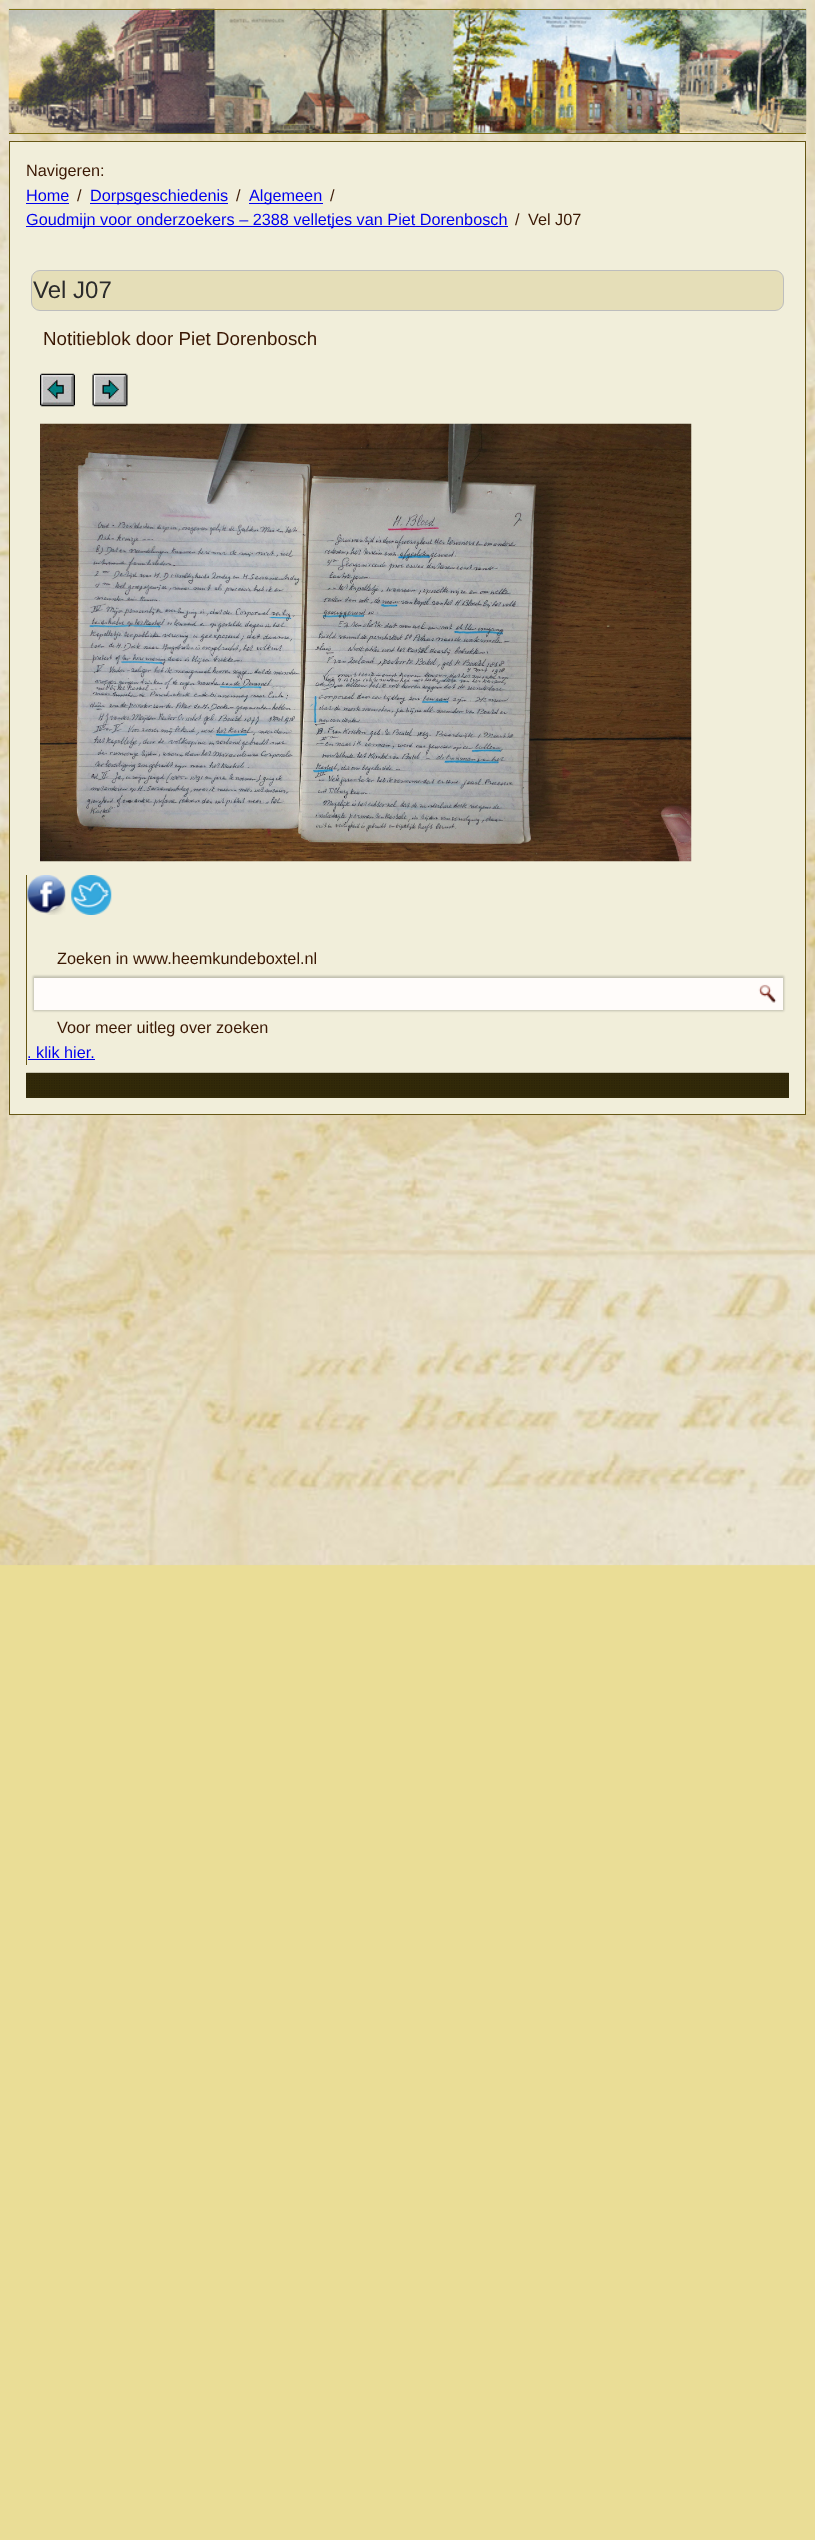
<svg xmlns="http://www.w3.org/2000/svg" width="815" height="2540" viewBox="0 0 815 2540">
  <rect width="100%" height="100%" fill="rgb(234,221,150)"/>
  <image x="0" y="0" width="815" height="1566" href="pic1.png"/>
  <image x="8" y="8" width="799" height="126" href="pic2.png"/>
  <rect x="9" y="9" width="797" height="1" fill="rgb(128,114,20)"/>
  <rect x="9" y="133" width="797" height="1" fill="rgb(128,114,20)"/>
  <rect x="9.5" y="141.5" width="796" height="973" fill="rgb(241,238,218)" stroke="rgb(102,86,20)"/>
  <text x="26" y="176" font-family="Liberation Sans" font-size="16.25" fill="rgb(58,24,4)">Navigeren:</text>
  <text x="26" y="201" font-family="Liberation Sans" font-size="16.25" fill="rgb(0,0,238)">Home</text>
  <rect x="26" y="203" width="43" height="1" fill="rgb(0,0,238)"/>
  <text x="77" y="201" font-family="Liberation Sans" font-size="16.25" fill="rgb(58,24,4)">/</text>
  <rect x="90" y="203" width="138" height="1" fill="rgb(0,0,238)"/>
  <text x="90" y="201" font-family="Liberation Sans" font-size="16.25" fill="rgb(0,0,238)">Dorpsgeschiedenis</text>
  <text x="236" y="201" font-family="Liberation Sans" font-size="16.25" fill="rgb(58,24,4)">/</text>
  <rect x="249" y="203" width="74" height="1" fill="rgb(0,0,238)"/>
  <text x="249" y="201" font-family="Liberation Sans" font-size="16.25" fill="rgb(0,0,238)">Algemeen</text>
  <text x="330" y="201" font-family="Liberation Sans" font-size="16.25" fill="rgb(58,24,4)">/</text>
  <rect x="26" y="226" width="482" height="1" fill="rgb(0,0,238)"/>
  <text x="26" y="225" font-family="Liberation Sans" font-size="16.25" fill="rgb(0,0,238)">Goudmijn voor onderzoekers – 2388 velletjes van Piet Dorenbosch</text>
  <g font-family="Liberation Sans" font-size="16.25" fill="rgb(58,24,4)">
    <text x="515" y="225">/</text>
    <text x="528" y="225">Vel J07</text>
  </g>
  <rect x="31.5" y="270.5" width="752" height="40" rx="8.5" fill="rgb(229,222,184)" stroke="rgb(189,189,189)"/>
  <text x="33" y="298" font-family="Liberation Sans" font-size="24" fill="rgb(43,43,43)">Vel J07</text>
  <text x="43" y="345" font-family="Liberation Sans" font-size="18.75" fill="rgb(58,24,4)">Notitieblok door Piet Dorenbosch</text>
  <image x="40" y="373" width="35" height="34" href="pic3.png"/>
  <image x="92" y="373" width="36" height="34" href="pic4.png"/>
  <image x="40" y="423" width="652" height="439" href="pic5.png"/>
  <rect x="26" y="875" width="1" height="190" fill="rgb(102,86,20)"/>
  <image x="27" y="875" width="39" height="40" href="pic6.png"/>
  <image x="71" y="875" width="41" height="40" href="pic7.png"/>
  <text x="57" y="964" font-family="Liberation Sans" font-size="16.25" fill="rgb(58,24,4)">Zoeken in www.heemkundeboxtel.nl</text>
  <rect x="33" y="976" width="751" height="35" fill="rgba(0,0,0,0.2)" filter="blur(1px)"/>
  <rect x="34" y="978" width="749" height="32" fill="rgb(255,252,250)"/>
  <image x="758" y="984" width="19" height="19" href="pic8.png"/>
  <text x="57" y="1033" font-family="Liberation Sans" font-size="16.25" fill="rgb(58,24,4)">Voor meer uitleg over zoeken</text>
  <text x="27" y="1058" font-family="Liberation Sans" font-size="16.25" fill="rgb(0,0,238)">. klik hier.</text>
  <rect x="28" y="1059" width="67" height="1" fill="rgb(0,0,238)"/>
  <rect x="26" y="1073" width="763" height="25" fill="rgb(51,43,10)"/>
  <image x="26" y="1072" width="763" height="24" href="pic9.png"/>
</svg>
